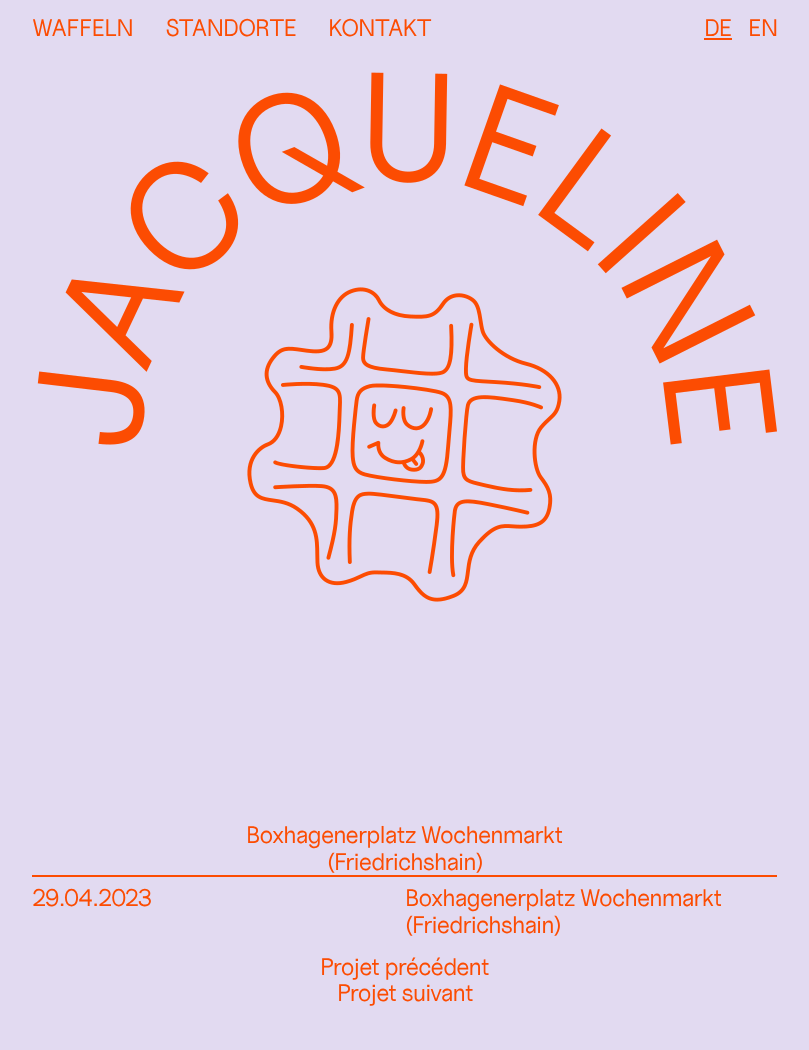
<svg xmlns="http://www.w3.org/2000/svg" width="809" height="1050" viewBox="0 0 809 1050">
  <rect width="100%" height="100%" fill="rgb(226,218,241)"/>
  <g font-family="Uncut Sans" font-size="24" letter-spacing="-0.95" fill="rgb(252,76,2)">
    <text x="32" y="36">WAFFELN</text>
    <text x="165" y="36">STANDORTE</text>
    <text x="328" y="36">KONTAKT</text>
    <text x="704" y="36">DE</text>
  </g>
  <rect x="704" y="38" width="28" height="2" fill="rgb(252,76,2)"/>
  <text x="748" y="36" font-family="Uncut Sans" font-size="24" letter-spacing="-0.95" fill="rgb(252,76,2)">EN</text>
  <image x="247" y="287" width="315" height="315" href="pic2.png"/>
  <image x="37" y="72" width="740" height="373" href="pic1.png"/>
  <g font-family="Uncut Sans" font-size="24" letter-spacing="-0.95" fill="rgb(252,76,2)">
    <text x="246" y="843">Boxhagenerplatz Wochenmarkt</text>
    <text x="327" y="870">(Friedrichshain)</text>
  </g>
  <rect x="32" y="875" width="745" height="2" fill="rgb(252,76,2)"/>
  <g font-family="Uncut Sans" font-size="24" letter-spacing="-0.95" fill="rgb(252,76,2)">
    <text x="32" y="906">29.04.2023</text>
    <text>
      <tspan x="405" y="906">Boxhagenerplatz Wochenmarkt</tspan>
      <tspan x="405" y="933">(Friedrichshain)</tspan>
    </text>
    <text x="320" y="975">Projet précédent</text>
    <text x="337" y="1001">Projet suivant</text>
  </g>
</svg>
